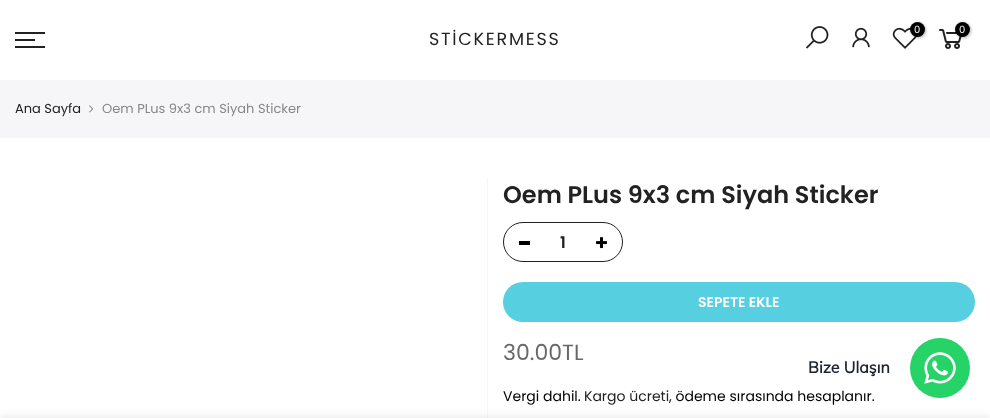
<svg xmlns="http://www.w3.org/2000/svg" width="990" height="418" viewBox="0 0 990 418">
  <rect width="100%" height="100%" fill="rgb(255,255,255)"/>
  <rect x="15" y="32" width="30" height="2" fill="rgb(34,34,34)"/>
  <rect x="15" y="39" width="20" height="2" fill="rgb(34,34,34)"/>
  <rect x="15" y="46" width="30" height="2" fill="rgb(34,34,34)"/>
  <text x="429" y="45" font-family="Poppins" font-size="17.5" letter-spacing="1.75" fill="rgb(34,34,34)">STİCKERMESS</text>
  <image x="806" y="26" width="23" height="23" href="pic1.png"/>
  <image x="852" y="27" width="18" height="21" href="pic2.png"/>
  <image x="892" y="27" width="25" height="22" href="pic3.png"/>
  <rect x="911" y="23" width="15" height="15" rx="7.5" fill="rgba(0,0,0,0.3)" filter="blur(1.5px)"/>
  <circle cx="917.5" cy="29.5" r="7.5" fill="rgb(0,0,0)"/>
  <text x="914" y="33" font-family="Poppins" font-size="10" fill="rgb(255,255,255)">0</text>
  <image x="939" y="29" width="23" height="20" href="pic4.png"/>
  <rect x="956" y="23" width="15" height="15" rx="7.5" fill="rgba(0,0,0,0.3)" filter="blur(1.5px)"/>
  <circle cx="962.5" cy="29.5" r="7.5" fill="rgb(0,0,0)"/>
  <text x="959" y="33" font-family="Poppins" font-size="10" fill="rgb(255,255,255)">0</text>
  <rect x="0" y="80" width="990" height="58" fill="rgb(246,246,248)"/>
  <text x="15" y="113" font-family="Poppins" font-size="13" fill="rgb(34,34,34)">Ana Sayfa</text>
  <image x="89" y="105" width="5" height="8" href="pic5.png"/>
  <text x="102" y="113" font-family="Poppins" font-size="13" fill="rgb(135,135,135)">Oem PLus 9x3 cm Siyah Sticker</text>
  <rect x="487" y="178" width="1" height="240" fill="rgb(245,245,245)"/>
  <text x="503" y="203" font-family="Poppins" font-size="24" font-weight="600" fill="rgb(34,34,34)">Oem PLus 9x3 cm Siyah Sticker</text>
  <rect x="503.5" y="222.5" width="119" height="39" rx="19.5" fill="none" stroke="rgb(34,34,34)"/>
  <text x="560" y="248" font-family="Poppins" font-size="16" font-weight="600" fill="rgb(34,34,34)">1</text>
  <rect x="519" y="241" width="11" height="4" fill="rgb(0,0,0)"/>
  <image x="596" y="237" width="11" height="12" href="pic6.png"/>
  <rect x="503" y="282" width="472" height="40" rx="20" fill="rgb(86,207,225)"/>
  <text x="698" y="307" font-family="Poppins" font-size="14" font-weight="600" fill="rgb(255,255,255)">SEPETE EKLE</text>
  <text x="503" y="360" font-family="Poppins" font-size="22" fill="rgb(105,105,105)">30.00TL</text>
  <text x="503" y="401" font-family="Poppins" font-size="14" fill="rgb(0,0,0)">Vergi dahil.</text>
  <text x="584" y="401" font-family="Poppins" font-size="14" fill="rgb(34,34,34)">Kargo ücreti</text>
  <text x="669" y="401" font-family="Poppins" font-size="14" fill="rgb(0,0,0)">, ödeme sırasında hesaplanır.</text>
  <circle cx="940" cy="368" r="30" fill="rgb(37,211,102)"/>
  <text x="808" y="373" font-family="Muli" font-size="16" font-weight="bold" fill="rgb(30,36,51)">Bize Ulaşın</text>
  <image x="924" y="352" width="32" height="32" href="pic7.png"/>
  <rect x="0" y="418" width="990" height="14" fill="rgba(0,0,0,0.12)" filter="blur(4.5px)"/>
</svg>
